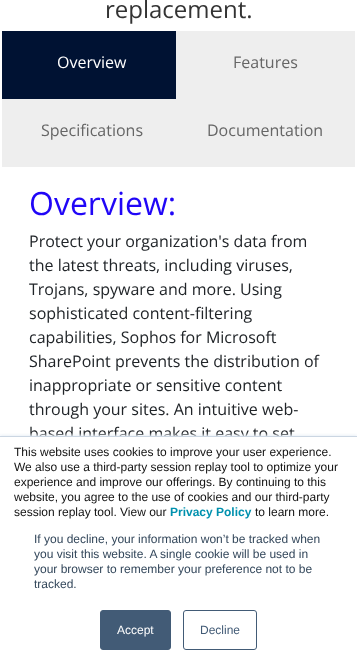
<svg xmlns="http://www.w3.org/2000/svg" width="357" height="670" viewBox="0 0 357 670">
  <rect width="100%" height="100%" fill="rgb(255,255,255)"/>
  <text x="105" y="18" font-family="Open Sans" font-size="24" fill="rgb(51,51,51)">replacement.</text>
  <rect x="2" y="31" width="174" height="68" fill="rgb(0,18,51)"/>
  <text x="57" y="68" font-family="Open Sans" font-size="16" fill="rgb(255,255,255)">Overview</text>
  <rect x="176" y="31" width="179" height="68" fill="rgb(238,238,238)"/>
  <text x="233" y="68" font-family="Open Sans" font-size="16" fill="rgb(102,102,102)">Features</text>
  <rect x="2" y="99" width="353" height="68" fill="rgb(238,238,238)"/>
  <g font-family="Open Sans" font-size="16" fill="rgb(102,102,102)">
    <text x="41" y="136">Specifications</text>
    <text x="207" y="136">Documentation</text>
  </g>
  <text x="29" y="215" font-family="Open Sans" font-size="32" fill="rgb(32,6,247)">Overview:</text>
  <g font-family="Open Sans" font-size="16" fill="rgb(33,37,41)">
    <text>
      <tspan x="29" y="247">Protect your organization's data from</tspan>
      <tspan x="29" y="271">the latest threats, including viruses,</tspan>
      <tspan x="29" y="295">Trojans, spyware and more. Using</tspan>
      <tspan x="29" y="319">sophisticated content-filtering</tspan>
      <tspan x="29" y="343">capabilities, Sophos for Microsoft</tspan>
      <tspan x="29" y="367">SharePoint prevents the distribution of</tspan>
      <tspan x="29" y="391">inappropriate or sensitive content</tspan>
      <tspan x="29" y="415">through your sites. An intuitive web-</tspan>
      <tspan x="29" y="439">based interface makes it easy to set</tspan>
    </text>
  </g>
  <rect x="0" y="435" width="357" height="234" fill="rgb(234,240,246)" filter="blur(1.5px)"/>
  <rect x="0" y="437" width="357" height="233" fill="rgb(255,255,255)"/>
  <rect x="0" y="436" width="357" height="1" fill="rgb(203,214,226)"/>
  <g font-family="Liberation Sans" font-size="12" fill="rgb(18,18,18)">
    <text>
      <tspan x="14" y="456">This website uses cookies to improve your user experience.</tspan>
      <tspan x="14" y="471">We also use a third-party session replay tool to optimize your</tspan>
      <tspan x="14" y="486">experience and improve our offerings. By continuing to this</tspan>
      <tspan x="14" y="501">website, you agree to the use of cookies and our third-party</tspan>
      <tspan x="14" y="516">session replay tool. View our</tspan>
    </text>
  </g>
  <text x="170" y="516" font-family="Liberation Sans" font-size="12" font-weight="bold" fill="rgb(0,145,174)">Privacy Policy</text>
  <text x="255" y="516" font-family="Liberation Sans" font-size="12" fill="rgb(18,18,18)">to learn more.</text>
  <g font-family="Liberation Sans" font-size="12" fill="rgb(51,71,91)">
    <text>
      <tspan x="34" y="543">If you decline, your information won’t be tracked when</tspan>
      <tspan x="34" y="558">you visit this website. A single cookie will be used in</tspan>
      <tspan x="34" y="573">your browser to remember your preference not to be</tspan>
      <tspan x="34" y="588">tracked.</tspan>
    </text>
  </g>
  <rect x="100.5" y="610.5" width="70" height="39" rx="2.5" fill="rgb(66,91,118)" stroke="rgb(66,91,118)"/>
  <text x="117" y="634" font-family="Liberation Sans" font-size="12" fill="rgb(255,255,255)">Accept</text>
  <rect x="183.5" y="610.5" width="73" height="39" rx="2.5" fill="none" stroke="rgb(66,91,118)"/>
  <text x="200" y="634" font-family="Liberation Sans" font-size="12" fill="rgb(66,91,118)">Decline</text>
</svg>
